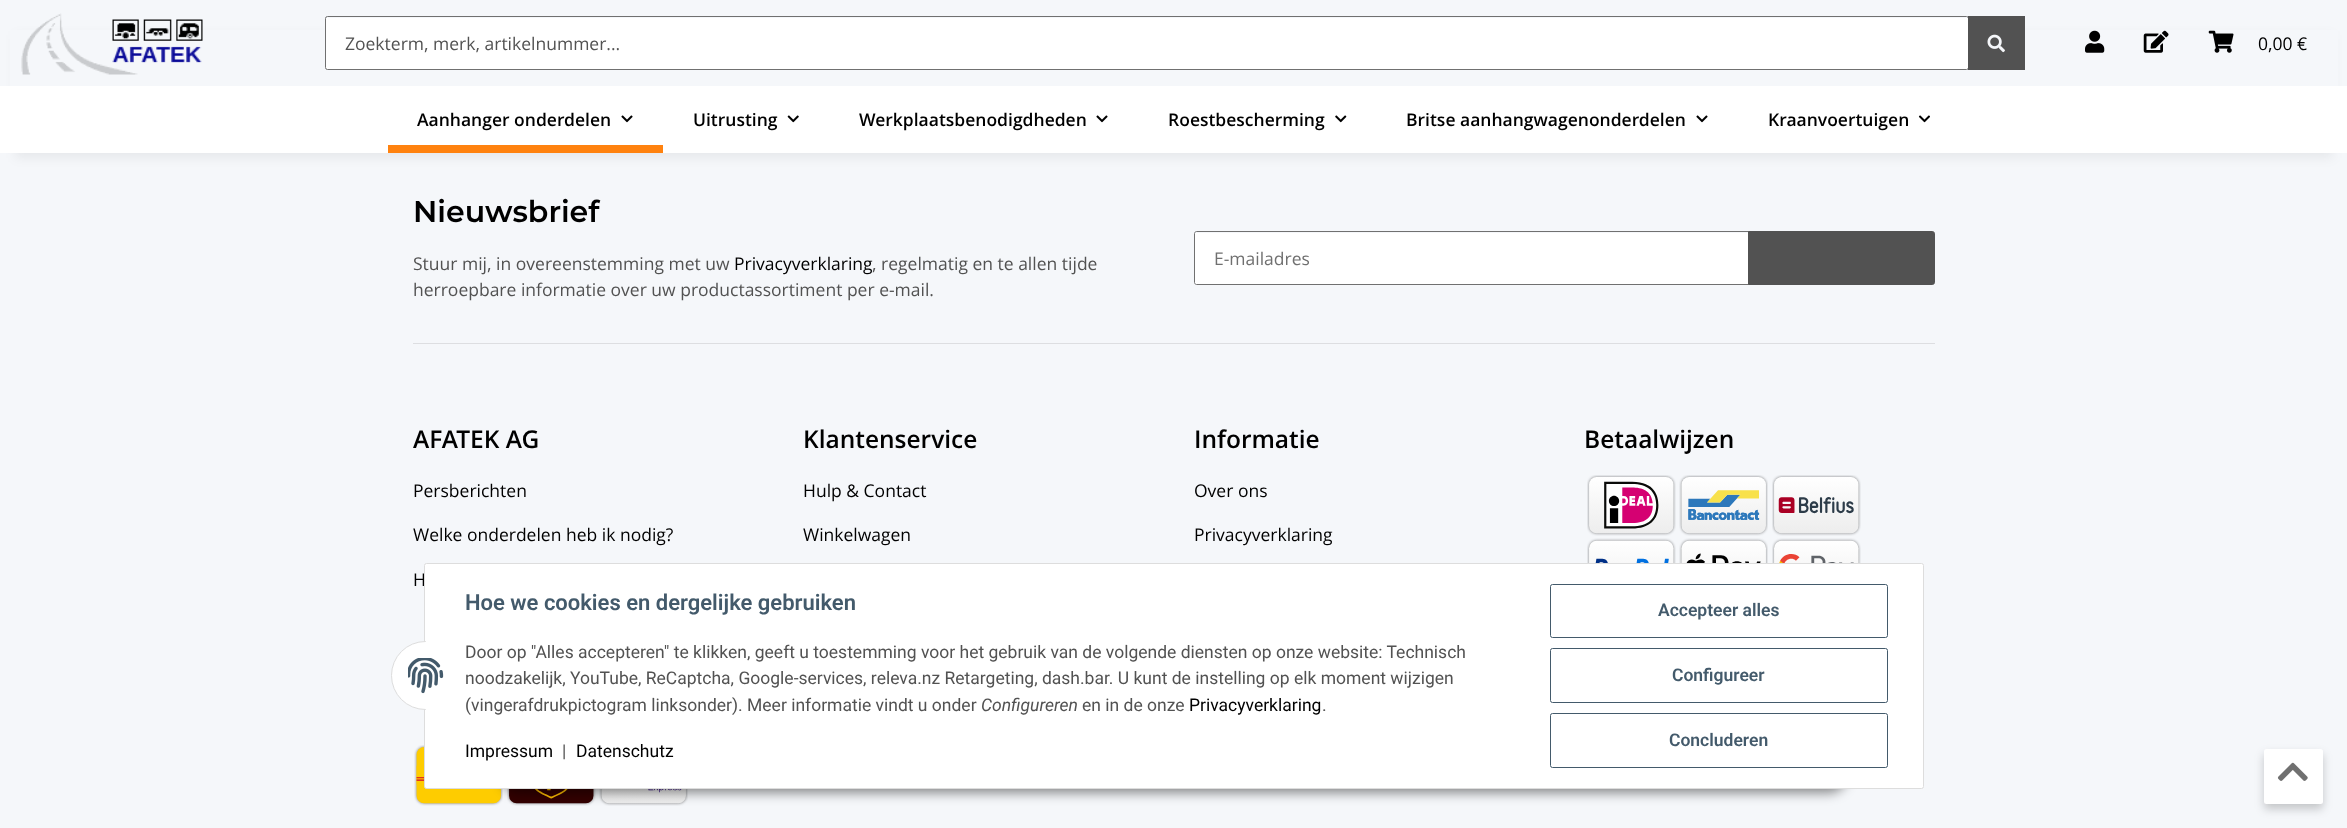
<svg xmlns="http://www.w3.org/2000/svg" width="2347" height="828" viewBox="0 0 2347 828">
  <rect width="100%" height="100%" fill="rgb(245,247,250)"/>
  <rect x="15" y="35" width="2318" height="123" fill="rgba(0,0,0,0.06)" filter="blur(5.5px)"/>
  <rect x="0" y="86" width="2347" height="67" fill="rgb(255,255,255)"/>
  <rect x="10" y="30" width="2328" height="56" fill="rgb(245,247,250)"/>
  <image x="21" y="13" width="182" height="62" href="pic1.png"/>
  <rect x="326" y="18" width="1642" height="51" rx="1" fill="rgb(255,255,255)"/>
  <rect x="325.5" y="16.5" width="1643" height="53" rx="2" fill="none" stroke="rgb(112,112,112)"/>
  <text x="345" y="50" font-family="Open Sans" font-size="17.5" fill="rgb(82,82,82)">Zoekterm, merk, artikelnummer...</text>
  <rect x="1968" y="16" width="57" height="54" fill="rgb(82,82,82)"/>
  <image x="1987" y="34" width="18" height="19" href="pic2.png"/>
  <image x="2085" y="30" width="20" height="23" href="pic3.png"/>
  <image x="2143" y="30" width="26" height="23" href="pic4.png"/>
  <image x="2208" y="30" width="26" height="23" href="pic5.png"/>
  <text x="2258" y="50" font-family="Open Sans" font-size="17.5" fill="rgb(0,0,0)">0,00 €</text>
  <text x="417" y="126" font-family="Open Sans" font-size="17.5" font-weight="600" fill="rgb(0,0,0)">Aanhanger onderdelen</text>
  <image x="621" y="115" width="12" height="8" href="pic6.png"/>
  <rect x="388" y="145" width="275" height="8" fill="rgb(255,130,15)"/>
  <text x="693" y="126" font-family="Open Sans" font-size="17.5" font-weight="600" fill="rgb(0,0,0)">Uitrusting</text>
  <image x="787" y="115" width="12" height="8" href="pic7.png"/>
  <text x="859" y="126" font-family="Open Sans" font-size="17.5" font-weight="600" fill="rgb(0,0,0)">Werkplaatsbenodigdheden</text>
  <image x="1096" y="115" width="12" height="8" href="pic6.png"/>
  <text x="1168" y="126" font-family="Open Sans" font-size="17.5" font-weight="600" fill="rgb(0,0,0)">Roestbescherming</text>
  <image x="1335" y="115" width="12" height="8" href="pic8.png"/>
  <text x="1406" y="126" font-family="Open Sans" font-size="17.5" font-weight="600" fill="rgb(0,0,0)">Britse aanhangwagenonderdelen</text>
  <image x="1696" y="115" width="12" height="8" href="pic6.png"/>
  <text x="1768" y="126" font-family="Open Sans" font-size="17.5" font-weight="600" fill="rgb(0,0,0)">Kraanvoertuigen</text>
  <image x="1918" y="115" width="12" height="8" href="pic9.png"/>
  <text x="413" y="222" font-family="Montserrat" font-size="30" font-weight="600" fill="rgb(0,0,0)">Nieuwsbrief</text>
  <text x="413" y="270" font-family="Open Sans" font-size="17.5" fill="rgb(82,82,82)">Stuur mij, in overeenstemming met uw</text>
  <text x="734" y="270" font-family="Open Sans" font-size="17.5" fill="rgb(0,0,0)">Privacyverklaring</text>
  <g font-family="Open Sans" font-size="17.5" fill="rgb(82,82,82)">
    <text x="872" y="270">, regelmatig en te allen tijde</text>
    <text x="413" y="296">herroepbare informatie over uw productassortiment per e-mail.</text>
  </g>
  <path d="M1196 233H1748V284H1196C1195.5 284 1195 283.5 1195 283V234C1195 233.5 1195.5 233 1196 233Z" fill="rgb(255,255,255)"/>
  <path d="M1196.5 231.5H1748.5V284.5H1196.5C1195.5 284.5 1194.5 283.5 1194.5 282.5V233.5C1194.5 232.5 1195.5 231.5 1196.5 231.5Z" fill="none" stroke="rgb(112,112,112)"/>
  <text x="1214" y="265" font-family="Open Sans" font-size="17.5" fill="rgb(112,112,112)">E-mailadres</text>
  <path d="M1748.5 231.5H1932.5C1933.5 231.5 1934.5 232.5 1934.5 233.5V282.5C1934.5 283.5 1933.5 284.5 1932.5 284.5H1748.5Z" fill="rgb(82,82,82)" stroke="rgb(82,82,82)"/>
  <rect x="413" y="343" width="1522" height="1" fill="rgb(221,222,225)"/>
  <text x="413" y="448" font-family="Open Sans" font-size="24.5" font-weight="600" fill="rgb(0,0,0)">AFATEK AG</text>
  <g font-family="Open Sans" font-size="17.5" fill="rgb(0,0,0)">
    <text x="413" y="497">Persberichten</text>
    <text x="413" y="541">Welke onderdelen heb ik nodig?</text>
    <text x="413" y="586">H</text>
  </g>
  <text x="803" y="448" font-family="Open Sans" font-size="24.5" font-weight="600" fill="rgb(0,0,0)">Klantenservice</text>
  <g font-family="Open Sans" font-size="17.5" fill="rgb(0,0,0)">
    <text x="803" y="497">Hulp &amp; Contact</text>
    <text x="803" y="541">Winkelwagen</text>
  </g>
  <text x="1194" y="448" font-family="Open Sans" font-size="24.5" font-weight="600" fill="rgb(0,0,0)">Informatie</text>
  <g font-family="Open Sans" font-size="17.5" fill="rgb(0,0,0)">
    <text x="1194" y="497">Over ons</text>
    <text x="1194" y="541">Privacyverklaring</text>
  </g>
  <text x="1584" y="448" font-family="Open Sans" font-size="24.5" font-weight="600" fill="rgb(0,0,0)">Betaalwijzen</text>
  <image x="1587" y="475" width="89" height="61" href="pic10.png"/>
  <image x="1679" y="475" width="89" height="61" href="pic11.png"/>
  <image x="1772" y="475" width="89" height="61" href="pic12.png"/>
  <image x="1587" y="538" width="89" height="25" href="pic13.png"/>
  <image x="1679" y="538" width="89" height="25" href="pic14.png"/>
  <image x="1772" y="538" width="89" height="25" href="pic15.png"/>
  <image x="414" y="745" width="89" height="61" href="pic16.png"/>
  <image x="507" y="789" width="89" height="17" href="pic17.png"/>
  <image x="599" y="789" width="89" height="17" href="pic18.png"/>
  <rect x="2264" y="754" width="59" height="55" rx="2.5" fill="rgba(0,0,0,0.2)" filter="blur(5px)"/>
  <rect x="2264" y="749" width="59" height="55" rx="2.5" fill="rgb(255,255,255)"/>
  <image x="2277" y="762" width="31" height="19" href="pic19.png"/>
  <rect x="500" y="753" width="1348" height="40" rx="20" fill="rgba(0,0,0,0.45)" filter="blur(6px)"/>
  <rect x="424.5" y="563.5" width="1499" height="225" rx="2" fill="rgb(255,255,255)" stroke="rgb(221,221,221)"/>
  <circle cx="425.5" cy="675.5" r="34" fill="rgb(255,255,255)" stroke="rgb(221,221,221)"/>
  <rect x="426" y="641" width="34" height="69" fill="rgb(255,255,255)"/>
  <image x="408" y="658" width="36" height="36" href="pic20.png"/>
  <text x="465" y="610" font-family="Roboto" font-size="22" font-weight="600" fill="rgb(67,90,107)">Hoe we cookies en dergelijke gebruiken</text>
  <g font-family="Roboto" font-size="17.5" fill="rgb(82,82,82)">
    <text>
      <tspan x="465" y="658">Door op "Alles accepteren" te klikken, geeft u toestemming voor het gebruik van de volgende diensten op onze website: Technisch</tspan>
      <tspan x="465" y="684">noodzakelijk, YouTube, ReCaptcha, Google-services, releva.nz Retargeting, dash.bar. U kunt de instelling op elk moment wijzigen</tspan>
      <tspan x="465" y="711">(vingerafdrukpictogram linksonder). Meer informatie vindt u onder</tspan>
    </text>
  </g>
  <text x="981" y="711" font-family="Roboto" font-size="17.5" font-style="italic" fill="rgb(82,82,82)">Configureren</text>
  <text x="1082" y="711" font-family="Roboto" font-size="17.5" fill="rgb(82,82,82)">en in de onze</text>
  <text x="1189" y="711" font-family="Roboto" font-size="17.5" fill="rgb(0,0,0)">Privacyverklaring</text>
  <text x="1322" y="711" font-family="Roboto" font-size="17.5" fill="rgb(82,82,82)">.</text>
  <text x="465" y="757" font-family="Roboto" font-size="17.5" fill="rgb(0,0,0)">Impressum</text>
  <text x="562" y="757" font-family="Roboto" font-size="17.5" fill="rgb(82,82,82)">|</text>
  <text x="576" y="757" font-family="Roboto" font-size="17.5" fill="rgb(0,0,0)">Datenschutz</text>
  <rect x="1550.5" y="584.5" width="337" height="53" rx="2" fill="none" stroke="rgb(67,90,107)"/>
  <text x="1658" y="616" font-family="Roboto" font-size="17.5" font-weight="600" fill="rgb(67,90,107)">Accepteer alles</text>
  <rect x="1550.5" y="648.5" width="337" height="54" rx="2" fill="none" stroke="rgb(67,90,107)"/>
  <text x="1672" y="681" font-family="Roboto" font-size="17.5" font-weight="600" fill="rgb(67,90,107)">Configureer</text>
  <rect x="1550.5" y="713.5" width="337" height="54" rx="2" fill="none" stroke="rgb(67,90,107)"/>
  <text x="1669" y="746" font-family="Roboto" font-size="17.5" font-weight="600" fill="rgb(67,90,107)">Concluderen</text>
</svg>
